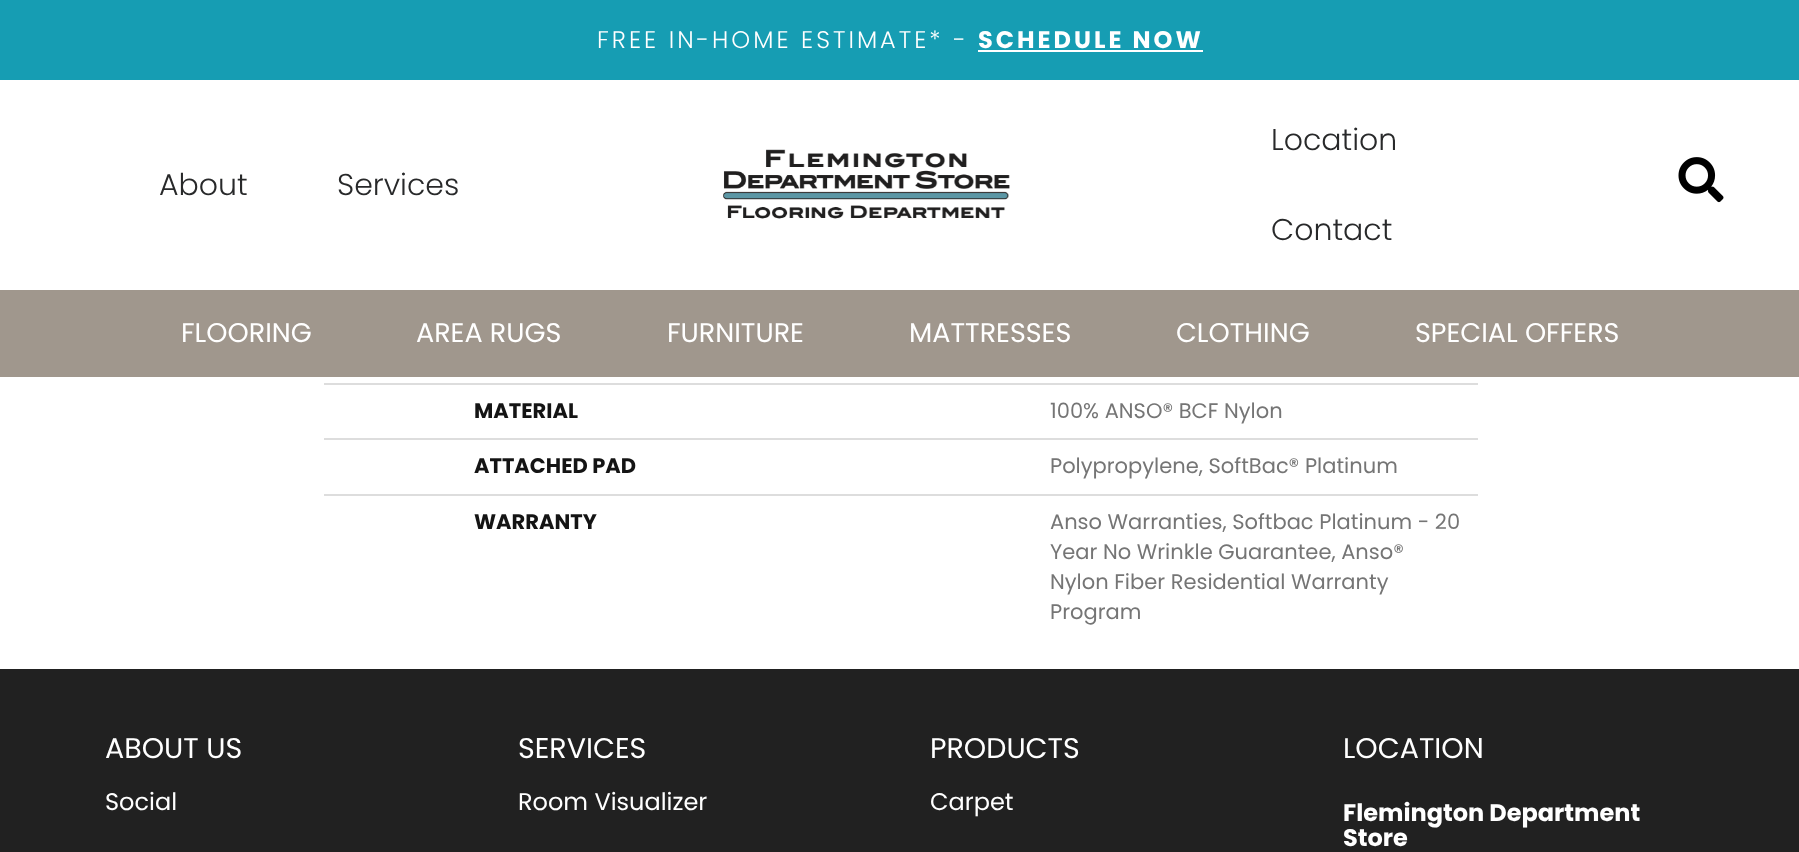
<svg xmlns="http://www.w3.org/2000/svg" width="1799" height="852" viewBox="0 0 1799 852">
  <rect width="100%" height="100%" fill="rgb(255,255,255)"/>
  <rect x="0" y="0" width="1799" height="80" fill="rgb(22,157,179)"/>
  <text x="597" y="48" font-family="Poppins" font-size="24" font-weight="300" letter-spacing="3" fill="rgb(255,255,255)">FREE IN-HOME ESTIMATE* -</text>
  <text x="978" y="48" font-family="Poppins" font-size="24" font-weight="bold" letter-spacing="3" fill="rgb(255,255,255)">SCHEDULE NOW</text>
  <rect x="978" y="50" width="225" height="2" fill="rgb(255,255,255)"/>
  <g font-family="Poppins" font-size="30" font-weight="300" fill="rgb(40,41,42)">
    <text x="159" y="195">About</text>
    <text x="337" y="195">Services</text>
  </g>
  <image x="723" y="149" width="287" height="70" href="pic1.png"/>
  <g font-family="Poppins" font-size="30" font-weight="300" fill="rgb(40,41,42)">
    <text x="1271" y="150">Location</text>
    <text x="1271" y="240">Contact</text>
  </g>
  <image x="1678" y="157" width="46" height="46" href="pic2.png"/>
  <rect x="0" y="290" width="1799" height="87" fill="rgb(160,151,141)"/>
  <g font-family="Poppins" font-size="27" fill="rgb(255,255,255)">
    <text x="181" y="342">FLOORING</text>
    <text x="416" y="342">AREA RUGS</text>
    <text x="667" y="342">FURNITURE</text>
    <text x="909" y="342">MATTRESSES</text>
    <text x="1176" y="342">CLOTHING</text>
    <text x="1415" y="342">SPECIAL OFFERS</text>
  </g>
  <text x="474" y="418" font-family="Poppins" font-size="21" font-weight="bold" fill="rgb(20,20,20)">MATERIAL</text>
  <rect x="324" y="383" width="1154" height="2" fill="rgb(221,221,221)"/>
  <text x="1050" y="418" font-family="Poppins" font-size="21" fill="rgb(117,117,117)">100% ANSO® BCF Nylon</text>
  <text x="474" y="473" font-family="Poppins" font-size="21" font-weight="bold" fill="rgb(20,20,20)">ATTACHED PAD</text>
  <rect x="324" y="438" width="1154" height="2" fill="rgb(221,221,221)"/>
  <text x="1050" y="473" font-family="Poppins" font-size="21" fill="rgb(117,117,117)">Polypropylene, SoftBac® Platinum</text>
  <text x="474" y="529" font-family="Poppins" font-size="21" font-weight="bold" fill="rgb(20,20,20)">WARRANTY</text>
  <rect x="324" y="494" width="1154" height="2" fill="rgb(221,221,221)"/>
  <g font-family="Poppins" font-size="21" fill="rgb(117,117,117)">
    <text>
      <tspan x="1050" y="529">Anso Warranties, Softbac Platinum - 20</tspan>
      <tspan x="1050" y="559">Year No Wrinkle Guarantee, Anso®</tspan>
      <tspan x="1050" y="589">Nylon Fiber Residential Warranty</tspan>
      <tspan x="1050" y="619">Program</tspan>
    </text>
  </g>
  <rect x="0" y="669" width="1799" height="183" fill="rgb(33,33,33)"/>
  <text x="105" y="758" font-family="Poppins" font-size="28.5" fill="rgb(255,255,255)">ABOUT US</text>
  <text x="105" y="810" font-family="Poppins" font-size="24" fill="rgb(255,255,255)">Social</text>
  <text x="518" y="758" font-family="Poppins" font-size="28.5" fill="rgb(255,255,255)">SERVICES</text>
  <text x="518" y="810" font-family="Poppins" font-size="24" fill="rgb(255,255,255)">Room Visualizer</text>
  <text x="930" y="758" font-family="Poppins" font-size="28.5" fill="rgb(255,255,255)">PRODUCTS</text>
  <text x="930" y="810" font-family="Poppins" font-size="24" fill="rgb(255,255,255)">Carpet</text>
  <text x="1343" y="758" font-family="Poppins" font-size="28.5" fill="rgb(255,255,255)">LOCATION</text>
  <g font-family="Poppins" font-size="24" font-weight="bold" fill="rgb(255,255,255)">
    <text>
      <tspan x="1343" y="821">Flemington Department</tspan>
      <tspan x="1343" y="846">Store</tspan>
    </text>
  </g>
</svg>
